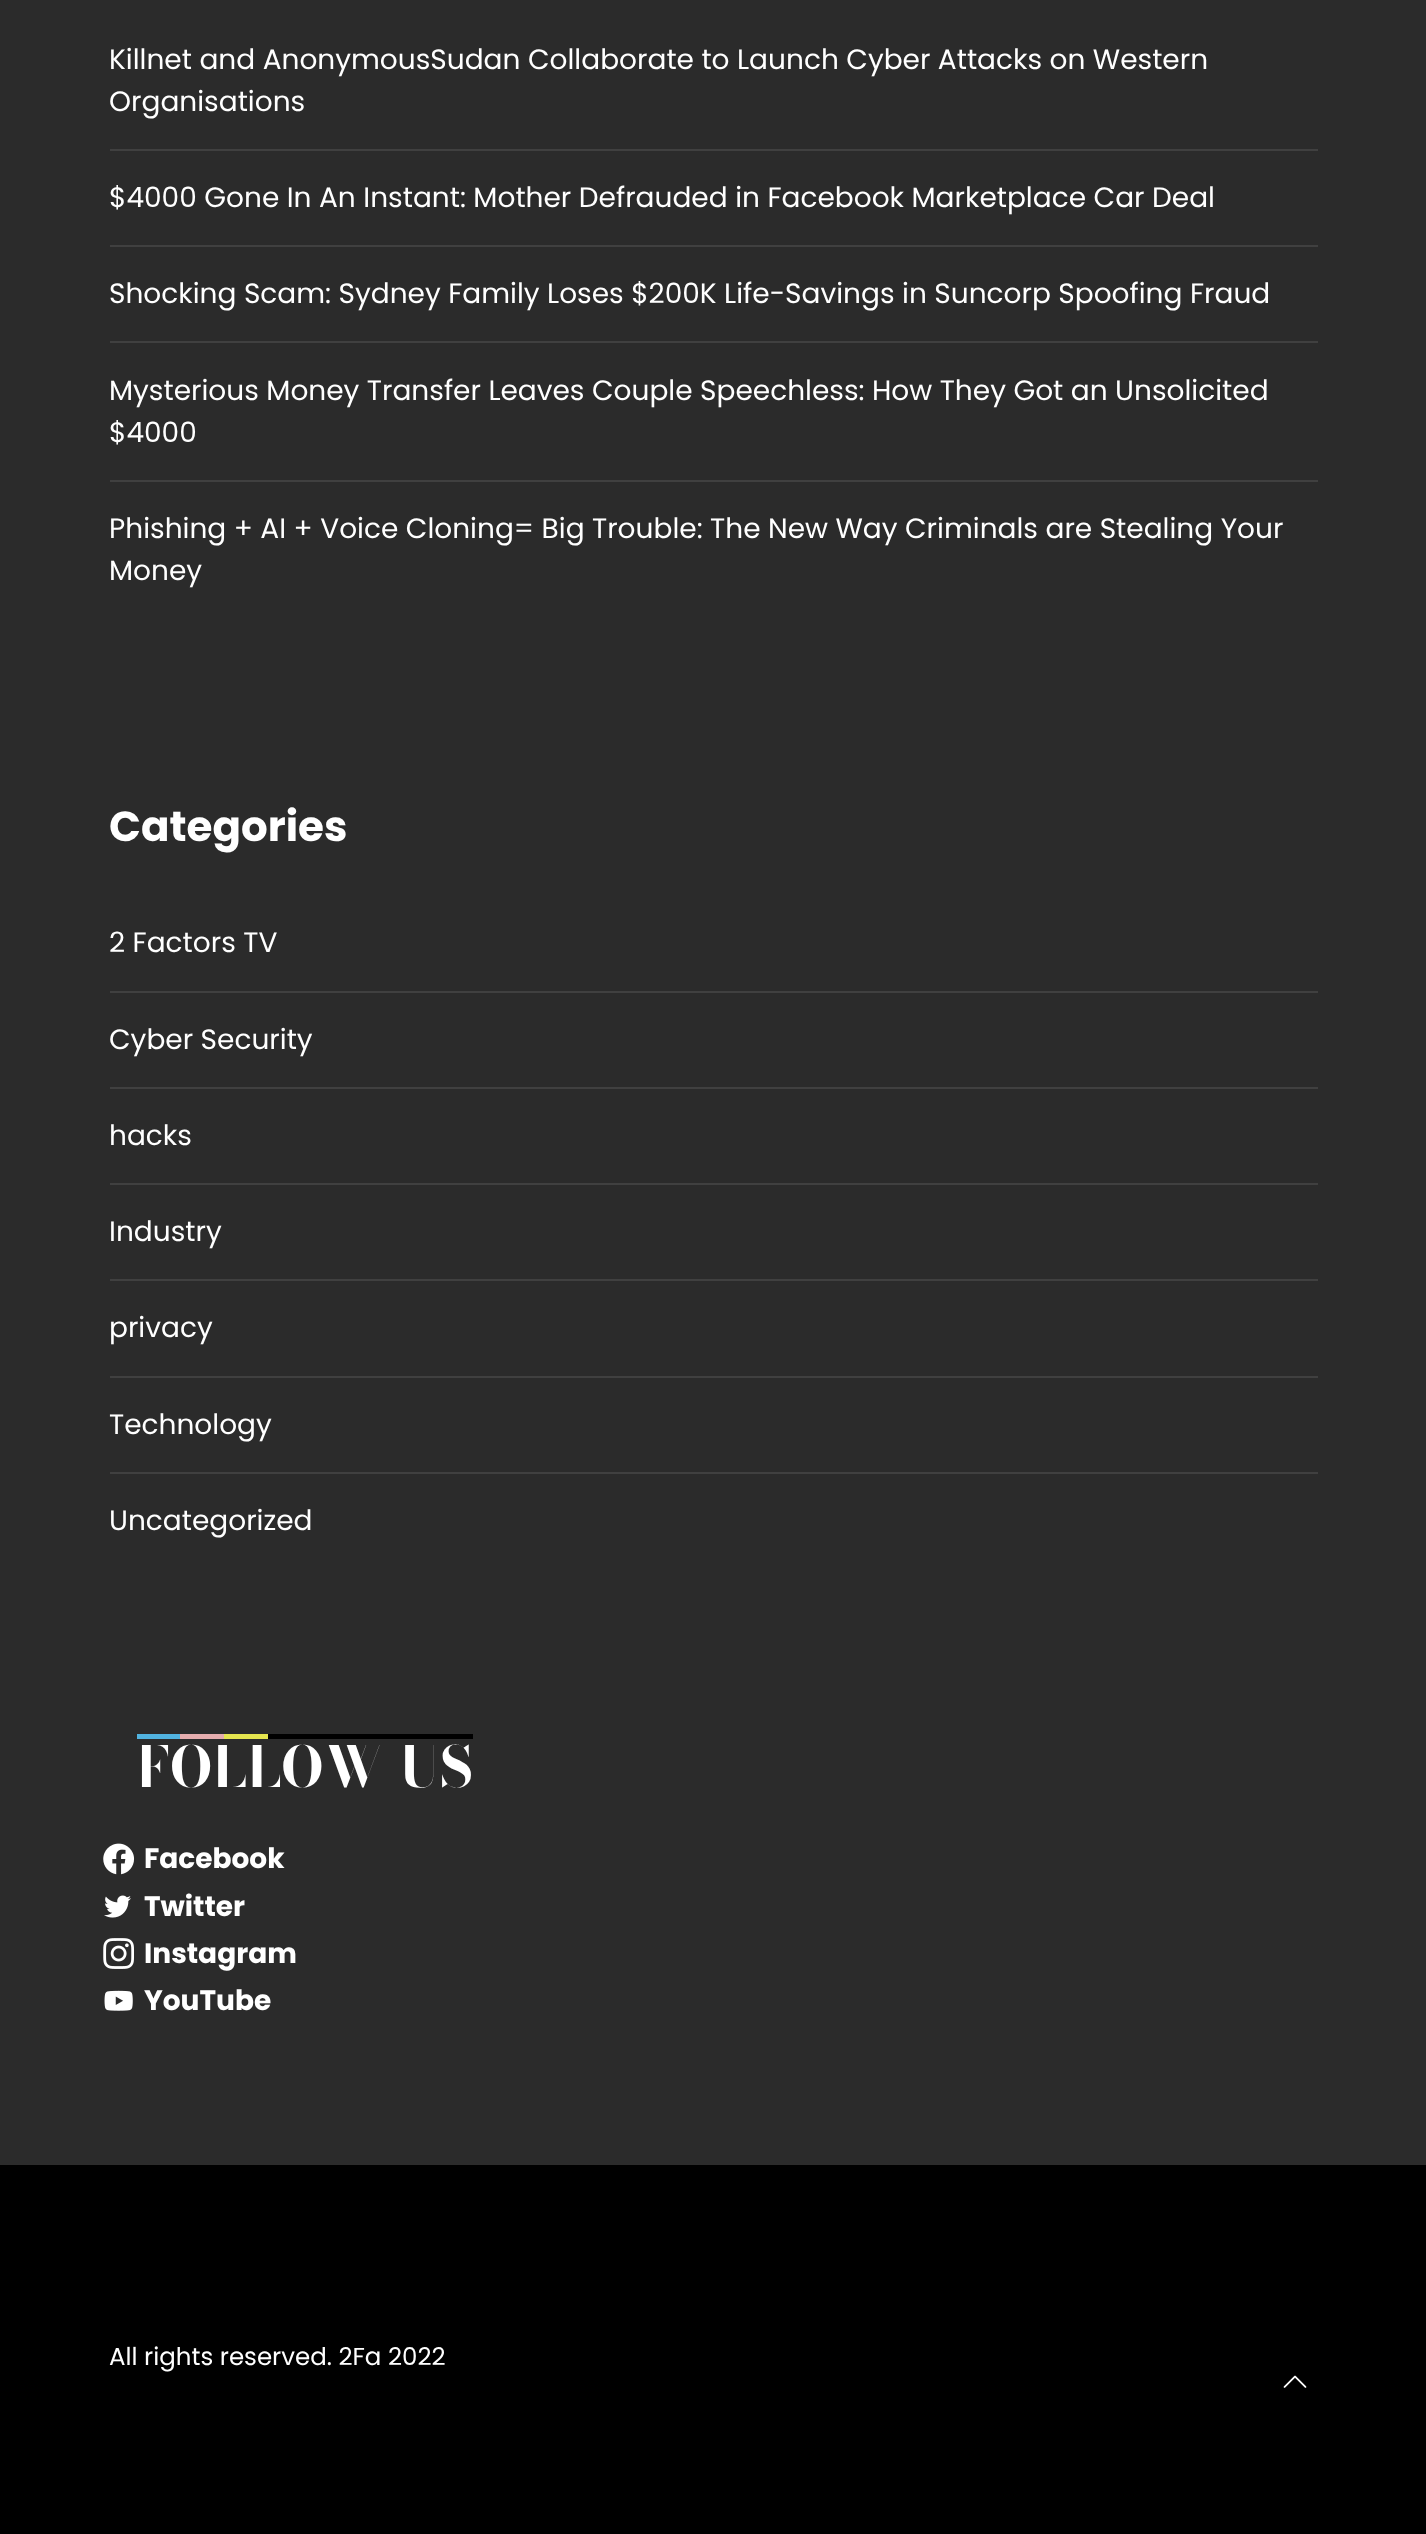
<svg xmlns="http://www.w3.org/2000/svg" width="1426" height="2534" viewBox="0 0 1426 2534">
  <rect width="100%" height="100%" fill="rgb(43,43,43)"/>
  <rect x="110" y="149" width="1208" height="2" fill="rgb(64,64,64)"/>
  <g font-family="Poppins" font-size="28" fill="rgb(255,255,255)">
    <text>
      <tspan x="109" y="69">Killnet and AnonymousSudan Collaborate to Launch Cyber Attacks on Western</tspan>
      <tspan x="109" y="111">Organisations</tspan>
    </text>
  </g>
  <rect x="110" y="245" width="1208" height="2" fill="rgb(64,64,64)"/>
  <text x="109" y="207" font-family="Poppins" font-size="28" fill="rgb(255,255,255)">$4000 Gone In An Instant: Mother Defrauded in Facebook Marketplace Car Deal</text>
  <rect x="110" y="341" width="1208" height="2" fill="rgb(64,64,64)"/>
  <text x="109" y="303" font-family="Poppins" font-size="28" fill="rgb(255,255,255)">Shocking Scam: Sydney Family Loses $200K Life-Savings in Suncorp Spoofing Fraud</text>
  <rect x="110" y="480" width="1208" height="2" fill="rgb(64,64,64)"/>
  <g font-family="Poppins" font-size="28" fill="rgb(255,255,255)">
    <text>
      <tspan x="109" y="400">Mysterious Money Transfer Leaves Couple Speechless: How They Got an Unsolicited</tspan>
      <tspan x="109" y="442">$4000</tspan>
    </text>
    <text>
      <tspan x="109" y="538">Phishing + AI + Voice Cloning= Big Trouble: The New Way Criminals are Stealing Your</tspan>
      <tspan x="109" y="580">Money</tspan>
    </text>
  </g>
  <text x="109" y="841" font-family="Poppins" font-size="42" font-weight="bold" fill="rgb(255,255,255)">Categories</text>
  <rect x="110" y="991" width="1208" height="2" fill="rgb(64,64,64)"/>
  <text x="109" y="952" font-family="Poppins" font-size="28" fill="rgb(255,255,255)">2 Factors TV</text>
  <rect x="110" y="1087" width="1208" height="2" fill="rgb(64,64,64)"/>
  <text x="109" y="1049" font-family="Poppins" font-size="28" fill="rgb(255,255,255)">Cyber Security</text>
  <rect x="110" y="1183" width="1208" height="2" fill="rgb(64,64,64)"/>
  <text x="109" y="1145" font-family="Poppins" font-size="28" fill="rgb(255,255,255)">hacks</text>
  <rect x="110" y="1279" width="1208" height="2" fill="rgb(64,64,64)"/>
  <text x="109" y="1241" font-family="Poppins" font-size="28" fill="rgb(255,255,255)">Industry</text>
  <rect x="110" y="1376" width="1208" height="2" fill="rgb(64,64,64)"/>
  <text x="109" y="1337" font-family="Poppins" font-size="28" fill="rgb(255,255,255)">privacy</text>
  <rect x="110" y="1472" width="1208" height="2" fill="rgb(64,64,64)"/>
  <g font-family="Poppins" font-size="28" fill="rgb(255,255,255)">
    <text x="109" y="1434">Technology</text>
    <text x="109" y="1530">Uncategorized</text>
  </g>
  <rect x="137" y="1734" width="43" height="5" fill="rgb(81,179,224)"/>
  <rect x="180" y="1734" width="44" height="5" fill="rgb(229,173,174)"/>
  <rect x="224" y="1734" width="44" height="5" fill="rgb(229,229,79)"/>
  <rect x="268" y="1734" width="205" height="5" fill="rgb(0,0,0)"/>
  <text x="136" y="1787" font-family="Bodoni Moda" font-size="56" font-weight="bold" fill="rgb(255,255,255)">FOLLOW US</text>
  <image x="103" y="1843" width="32" height="32" href="pic1.png"/>
  <text x="144" y="1868" font-family="Poppins" font-size="28" font-weight="bold" fill="rgb(255,255,255)">Facebook</text>
  <image x="104" y="1895" width="27" height="23" href="pic2.png"/>
  <text x="144" y="1916" font-family="Poppins" font-size="28" font-weight="bold" fill="rgb(255,255,255)">Twitter</text>
  <image x="103" y="1938" width="31" height="31" href="pic3.png"/>
  <text x="144" y="1963" font-family="Poppins" font-size="28" font-weight="bold" fill="rgb(255,255,255)">Instagram</text>
  <image x="104" y="1990" width="29" height="21" href="pic4.png"/>
  <text x="144" y="2010" font-family="Poppins" font-size="28" font-weight="bold" fill="rgb(255,255,255)">YouTube</text>
  <rect x="0" y="2165" width="1426" height="369" fill="rgb(0,0,0)"/>
  <text x="109" y="2365" font-family="Poppins" font-size="24.5" fill="rgb(255,255,255)">All rights reserved. 2Fa 2022</text>
  <image x="1283" y="2375" width="24" height="13" href="pic5.png"/>
</svg>
